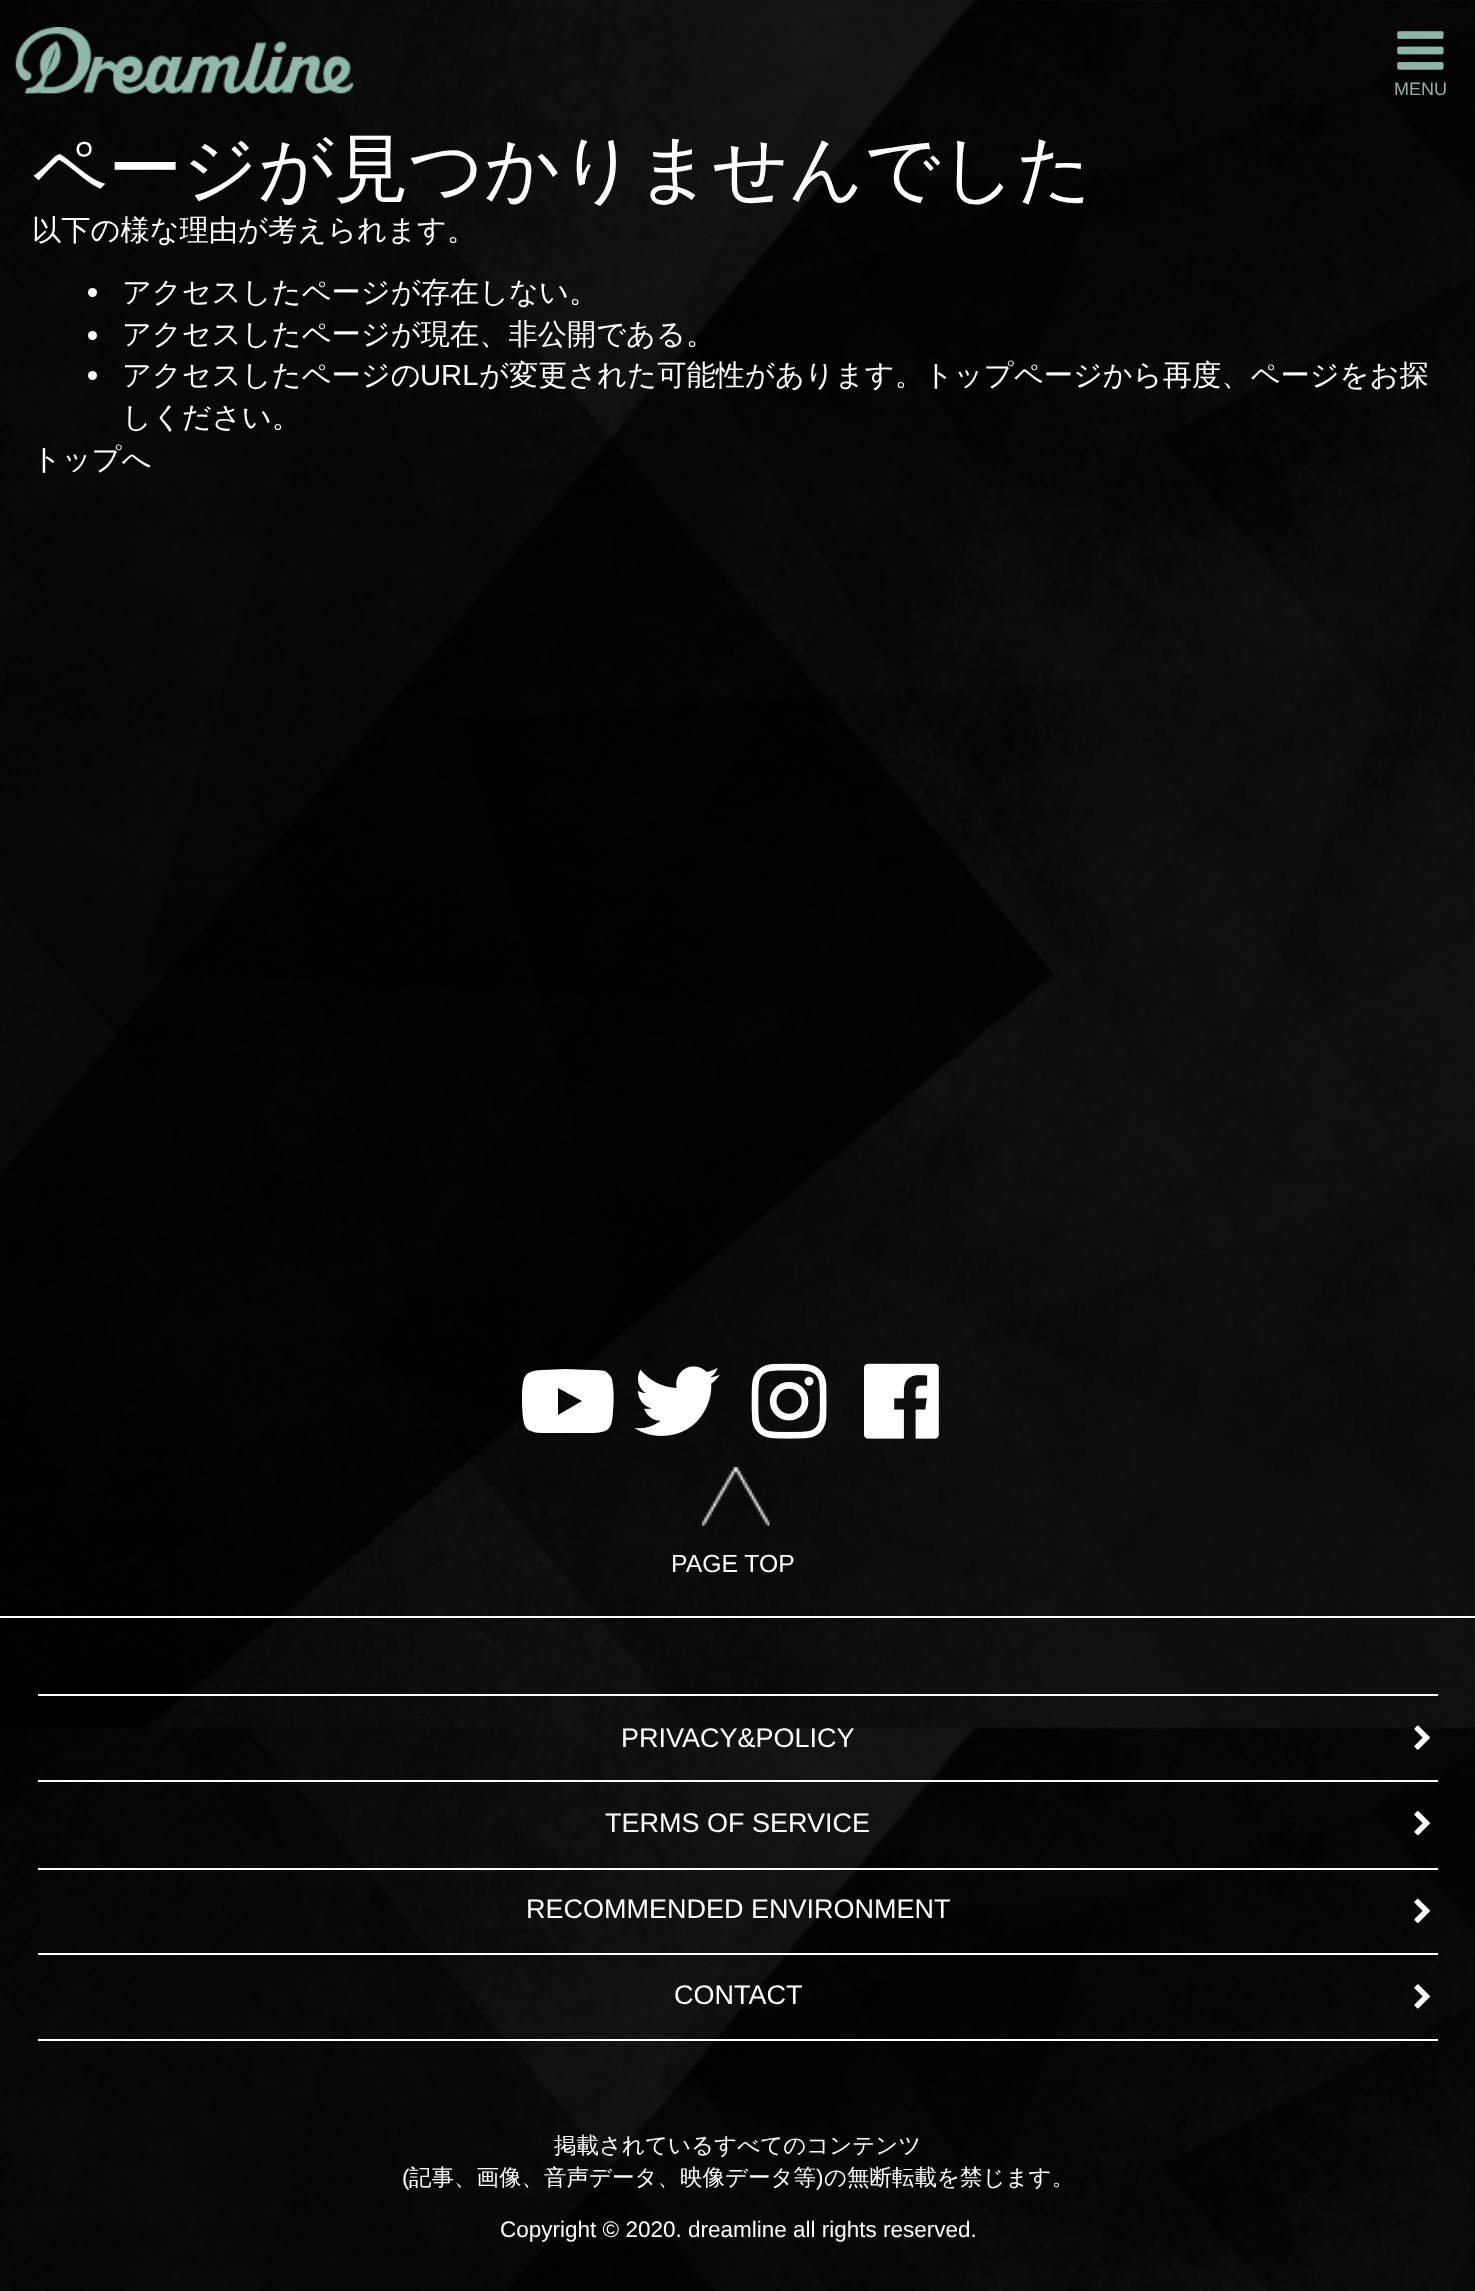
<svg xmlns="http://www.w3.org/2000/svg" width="1475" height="2291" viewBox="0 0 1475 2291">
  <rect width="100%" height="100%" fill="rgb(255,255,255)"/>
  <image x="0" y="0" width="1475" height="2291" href="pic1.png"/>
  <image x="15" y="27" width="339" height="68" href="pic2.png"/>
  <image x="1397" y="31" width="47" height="39" href="pic3.png"/>
  <text x="1394" y="95" font-family="Liberation Sans" font-size="18" fill="rgb(142,180,167)">MENU</text>
  <text x="32" y="194" font-family="WenQuanYi Zen Hei" font-size="74.25" font-weight="500" fill="rgb(255,255,255)">ページが見つかりませんでした</text>
  <text x="32" y="240" font-family="WenQuanYi Zen Hei" font-size="29.25" font-weight="500" fill="rgb(255,255,255)">以下の様な理由が考えられます。</text>
  <circle cx="92.5" cy="292.5" r="4.5" fill="rgb(255,255,255)"/>
  <text x="122" y="302" font-family="WenQuanYi Zen Hei" font-size="29.25" font-weight="500" fill="rgb(255,255,255)">アクセスしたページが存在しない。</text>
  <circle cx="92.5" cy="335.5" r="4.5" fill="rgb(255,255,255)"/>
  <text x="122" y="344" font-family="WenQuanYi Zen Hei" font-size="29.25" font-weight="500" fill="rgb(255,255,255)">アクセスしたページが現在、非公開である。</text>
  <circle cx="92.5" cy="375.5" r="4.5" fill="rgb(255,255,255)"/>
  <text x="122" y="385" font-family="WenQuanYi Zen Hei" font-size="29.25" font-weight="500" fill="rgb(255,255,255)">アクセスしたページの</text>
  <text x="420" y="385" font-family="Liberation Sans" font-size="29.25" fill="rgb(255,255,255)">URL</text>
  <g font-family="WenQuanYi Zen Hei" font-size="29.25" font-weight="500" fill="rgb(255,255,255)">
    <text x="479" y="385">が変更された可能性があります。トップページから再度、ページをお探</text>
    <text x="122" y="427">しください。</text>
    <text x="32" y="469">トップへ</text>
  </g>
  <path d="M612 1379C614 1389 614 1401 613 1411C612 1428 610 1432 594 1433H571H545C540 1433 535 1433 531 1431C527 1430 525 1427 524 1423C522 1415 522 1402 522 1394C523 1376 524 1371 542 1370L566 1369L591 1370C595 1370 601 1370 605 1371C608 1373 611 1376 612 1379ZM558 1415L582 1401L558 1388Z" fill="rgb(255,255,255)"/>
  <image x="634" y="1366" width="86" height="70" href="pic4.png"/>
  <image x="751" y="1363" width="76" height="76" href="pic5.png"/>
  <image x="864" y="1363" width="75" height="76" href="pic6.png"/>
  <image x="702" y="1467" width="68" height="59" href="pic7.png"/>
  <text x="671" y="1572" font-family="Liberation Sans" font-size="24.75" fill="rgb(255,255,255)">PAGE TOP</text>
  <rect x="0" y="1616" width="1475" height="2" fill="rgb(255,255,255)"/>
  <rect x="38" y="1694" width="1400" height="2" fill="rgb(255,255,255)"/>
  <text x="621" y="1747" font-family="Liberation Sans" font-size="27" fill="rgb(255,255,255)">PRIVACY&amp;POLICY</text>
  <image x="1414" y="1725" width="16" height="25" href="pic8.png"/>
  <rect x="38" y="1780" width="1400" height="2" fill="rgb(255,255,255)"/>
  <text x="605" y="1832" font-family="Liberation Sans" font-size="27" fill="rgb(255,255,255)">TERMS OF SERVICE</text>
  <image x="1414" y="1811" width="16" height="25" href="pic9.png"/>
  <rect x="38" y="1868" width="1400" height="2" fill="rgb(255,255,255)"/>
  <text x="526" y="1918" font-family="Liberation Sans" font-size="27" fill="rgb(255,255,255)">RECOMMENDED ENVIRONMENT</text>
  <image x="1414" y="1898" width="16" height="25" href="pic10.png"/>
  <rect x="38" y="1953" width="1400" height="2" fill="rgb(255,255,255)"/>
  <rect x="38" y="2039" width="1400" height="2" fill="rgb(255,255,255)"/>
  <text x="674" y="2004" font-family="Liberation Sans" font-size="27" fill="rgb(255,255,255)">CONTACT</text>
  <image x="1414" y="1984" width="16" height="25" href="pic11.png"/>
  <text x="554" y="2153" font-family="WenQuanYi Zen Hei" font-size="22.5" font-weight="500" fill="rgb(255,255,255)">掲載されているすべてのコンテンツ</text>
  <text x="402" y="2185" font-family="Liberation Sans" font-size="22.5" fill="rgb(255,255,255)">(</text>
  <text x="409" y="2185" font-family="WenQuanYi Zen Hei" font-size="22.5" font-weight="500" fill="rgb(255,255,255)">記事、画像、音声データ、映像データ等</text>
  <text x="816" y="2185" font-family="Liberation Sans" font-size="22.5" fill="rgb(255,255,255)">)</text>
  <text x="824" y="2185" font-family="WenQuanYi Zen Hei" font-size="22.5" font-weight="500" fill="rgb(255,255,255)">の無断転載を禁じます。</text>
  <text x="500" y="2237" font-family="Liberation Sans" font-size="22.5" fill="rgb(255,255,255)">Copyright ©︎ 2020. dreamline all rights reserved.</text>
</svg>
